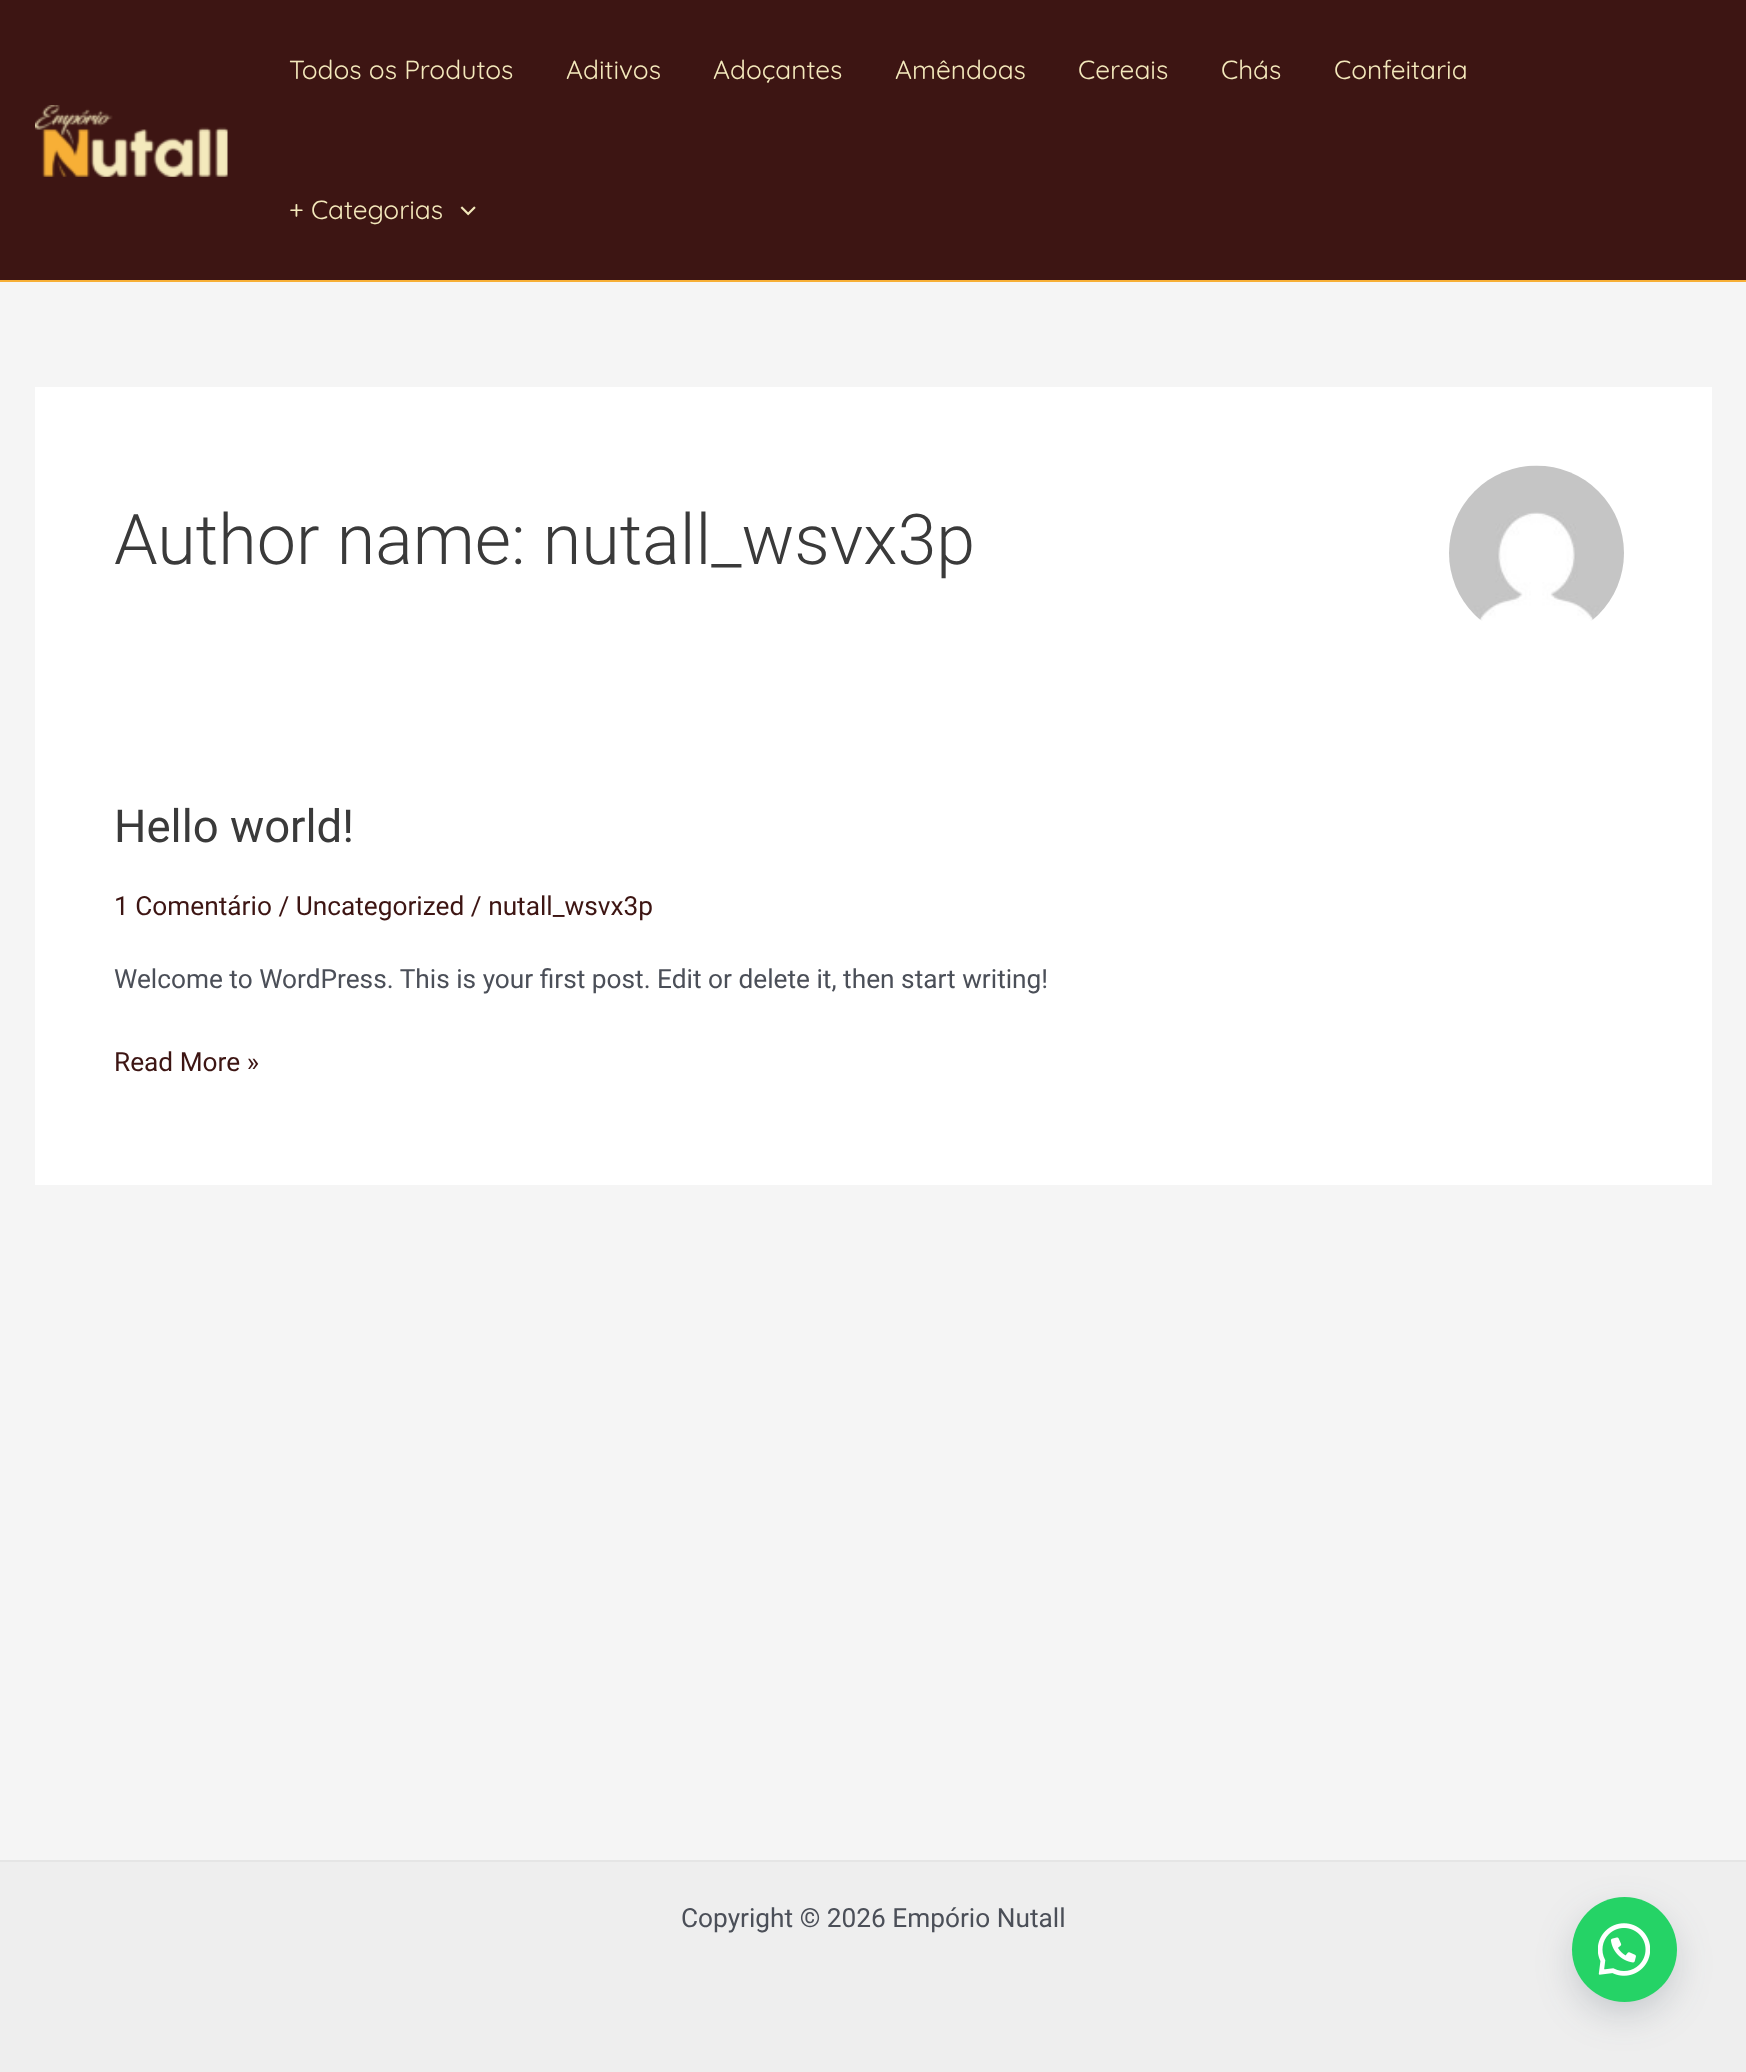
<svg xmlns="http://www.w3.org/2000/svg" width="1746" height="2072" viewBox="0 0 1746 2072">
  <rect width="100%" height="100%" fill="rgb(245,245,245)"/>
  <rect x="0" y="0" width="1746" height="280" fill="rgb(61,21,19)"/>
  <rect x="0" y="280" width="1746" height="2" fill="rgb(247,175,54)"/>
  <image x="35" y="105" width="193" height="72" href="pic1.png"/>
  <g font-family="Quicksand" font-size="26.25" font-weight="300" fill="rgb(244,233,188)">
    <text x="289" y="79">Todos os Produtos</text>
    <text x="566" y="79">Aditivos</text>
    <text x="713" y="79">Adoçantes</text>
    <text x="895" y="79">Amêndoas</text>
    <text x="1078" y="79">Cereais</text>
    <text x="1221" y="79">Chás</text>
    <text x="1334" y="79">Confeitaria</text>
    <text x="289" y="219">+ Categorias</text>
  </g>
  <image x="460" y="206" width="16" height="10" href="pic2.png"/>
  <rect x="35" y="387" width="1677" height="798" fill="rgb(255,255,255)"/>
  <text x="114" y="564" font-family="Roboto" font-size="70" font-weight="300" fill="rgb(58,58,58)">Author name: nutall_wsvx3p</text>
  <image x="1449" y="465" width="175" height="156" href="pic3.png"/>
  <text x="114" y="842" font-family="Roboto" font-size="45.5" fill="rgb(58,58,58)">Hello world!</text>
  <text x="114" y="915" font-family="Roboto" font-size="26.25" fill="rgb(61,21,19)">1 Comentário / Uncategorized / nutall_wsvx3p</text>
  <text x="114" y="988" font-family="Roboto" font-size="26.25" fill="rgb(75,79,88)">Welcome to WordPress. This is your first post. Edit or delete it, then start writing!</text>
  <text x="114" y="1071" font-family="Roboto" font-size="26.25" fill="rgb(61,21,19)">Read More »</text>
  <rect x="0" y="1862" width="1746" height="210" fill="rgb(238,238,238)"/>
  <rect x="0" y="1860" width="1746" height="2" fill="rgb(229,229,229)"/>
  <text x="681" y="1927" font-family="Roboto" font-size="26.25" fill="rgb(75,79,88)">Copyright © 2026 Empório Nutall</text>
  <rect x="1580" y="1920" width="88" height="87" rx="43.5" fill="rgba(45,62,79,0.3)" filter="blur(22px)"/>
  <circle cx="1624.5" cy="1949.5" r="52.5" fill="rgb(37,211,102)"/>
  <image x="1598" y="1923" width="52" height="53" href="pic4.png"/>
</svg>
